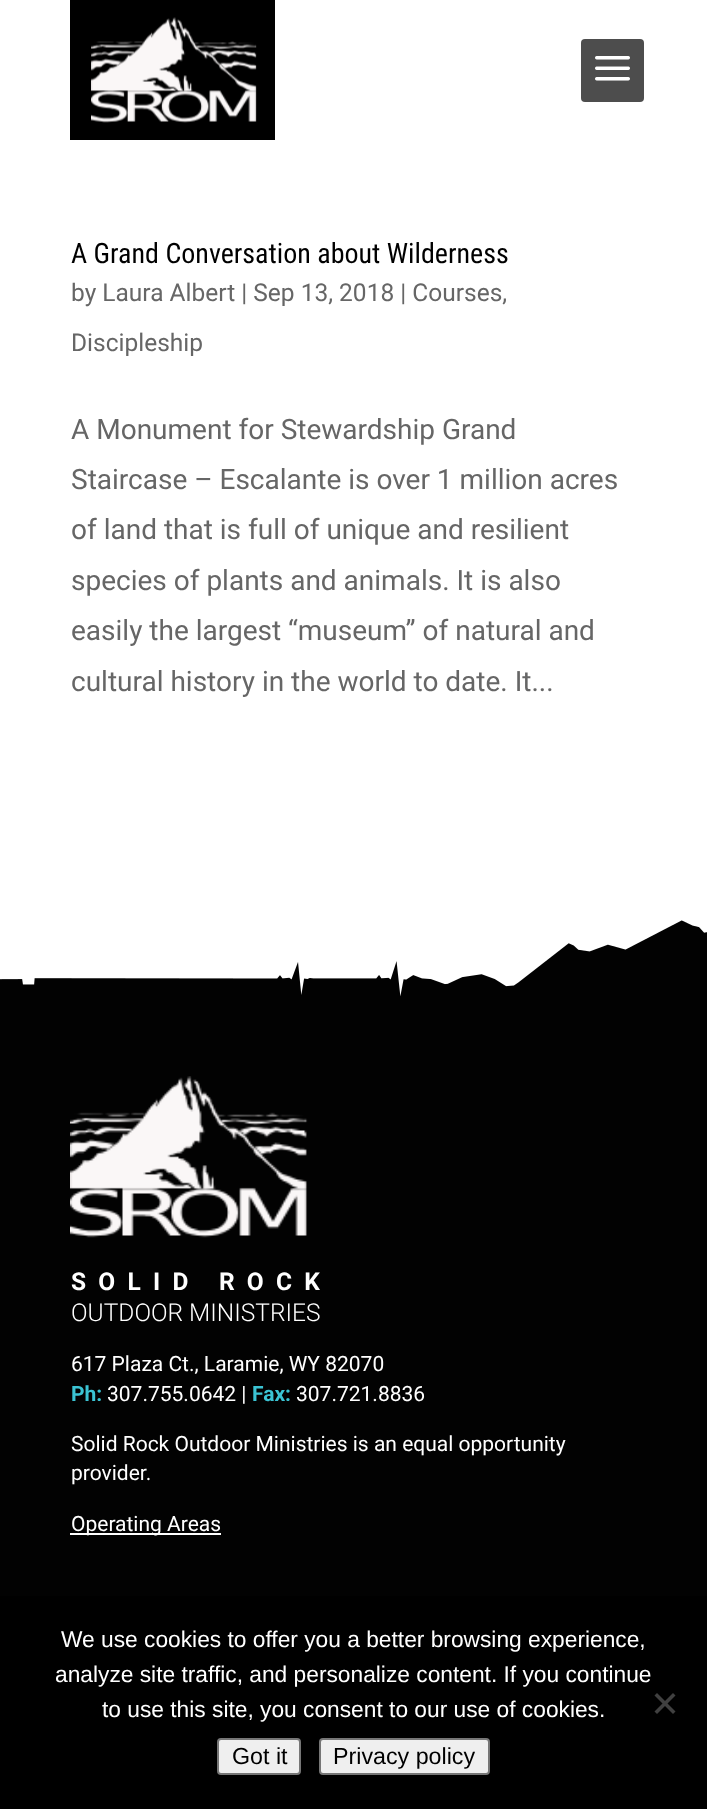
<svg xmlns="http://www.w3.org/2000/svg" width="707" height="1809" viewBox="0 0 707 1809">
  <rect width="100%" height="100%" fill="rgb(255,255,255)"/>
  <rect x="70" y="0" width="205" height="140" fill="rgb(0,0,0)"/>
  <image x="91" y="17" width="166" height="106" href="pic1.png"/>
  <rect x="581" y="39" width="63" height="63" rx="4" fill="rgb(77,77,77)"/>
  <image x="595" y="56" width="35" height="25" href="pic2.png"/>
  <text x="71" y="263" font-family="Roboto Condensed" font-size="28" fill="rgb(0,0,0)">A Grand Conversation about Wilderness</text>
  <g font-family="Roboto" font-size="24.5" fill="rgb(102,102,102)">
    <text x="71" y="301">by Laura Albert | Sep 13, 2018 | Courses,</text>
    <text x="71" y="351">Discipleship</text>
  </g>
  <g font-family="Roboto" font-size="28" fill="rgb(102,102,102)">
    <text>
      <tspan x="71" y="439">A Monument for Stewardship Grand</tspan>
      <tspan x="71" y="489">Staircase – Escalante is over 1 million acres</tspan>
      <tspan x="71" y="539">of land that is full of unique and resilient</tspan>
      <tspan x="71" y="590">species of plants and animals. It is also</tspan>
      <tspan x="71" y="640">easily the largest “museum” of natural and</tspan>
      <tspan x="71" y="691">cultural history in the world to date. It...</tspan>
    </text>
  </g>
  <rect x="0" y="1008" width="707" height="588" fill="rgb(2,2,2)"/>
  <image x="0" y="920" width="707" height="88" href="pic3.png"/>
  <image x="70" y="1076" width="238" height="162" href="pic4.png"/>
  <text x="71" y="1290" font-family="Roboto" font-size="24.5" font-weight="bold" letter-spacing="12.25" fill="rgb(255,255,255)">SOLID ROCK</text>
  <text x="71" y="1321" font-family="Roboto" font-size="24.5" font-weight="300" fill="rgb(255,255,255)">OUTDOOR MINISTRIES</text>
  <text x="71" y="1371" font-family="Roboto" font-size="21" fill="rgb(255,255,255)">617 Plaza Ct., Laramie, WY 82070</text>
  <text x="71" y="1401" font-family="Roboto" font-size="21" font-weight="bold" fill="rgb(59,195,211)">Ph:</text>
  <text x="107" y="1401" font-family="Roboto" font-size="21" fill="rgb(255,255,255)">307.755.0642 |</text>
  <text x="252" y="1401" font-family="Roboto" font-size="21" font-weight="bold" fill="rgb(59,195,211)">Fax:</text>
  <g font-family="Roboto" font-size="21" fill="rgb(255,255,255)">
    <text x="296" y="1401">307.721.8836</text>
    <text>
      <tspan x="71" y="1451">Solid Rock Outdoor Ministries is an equal opportunity</tspan>
      <tspan x="71" y="1480">provider.</tspan>
    </text>
  </g>
  <rect x="70" y="1533" width="151" height="2" fill="rgb(255,255,255)"/>
  <text x="71" y="1531" font-family="Roboto" font-size="21" fill="rgb(255,255,255)">Operating Areas</text>
  <rect x="0" y="1596" width="707" height="213" fill="rgb(0,0,0)"/>
  <g font-family="Liberation Sans" font-size="22.75" fill="rgb(255,255,255)">
    <text x="61" y="1647">We use cookies to offer you a better browsing experience,</text>
    <text x="55" y="1682">analyze site traffic, and personalize content. If you continue</text>
    <text x="102" y="1717">to use this site, you consent to our use of cookies.</text>
  </g>
  <path d="M673 1693L675.5 1695.5L657 1714L654.5 1711.5Z" fill="rgb(64,64,64)"/>
  <path d="M654.5 1695.5L657 1693L675.5 1711.5L673 1714Z" fill="rgb(64,64,64)"/>
  <rect x="218" y="1739" width="82" height="35" rx="3" fill="rgb(239,239,239)" stroke="rgb(118,118,118)" stroke-width="2"/>
  <text x="232" y="1764" font-family="Liberation Sans" font-size="23.25" fill="rgb(0,0,0)">Got it</text>
  <rect x="320" y="1739" width="169" height="35" rx="3" fill="rgb(239,239,239)" stroke="rgb(118,118,118)" stroke-width="2"/>
  <text x="333" y="1764" font-family="Liberation Sans" font-size="23.25" fill="rgb(0,0,0)">Privacy policy</text>
</svg>
